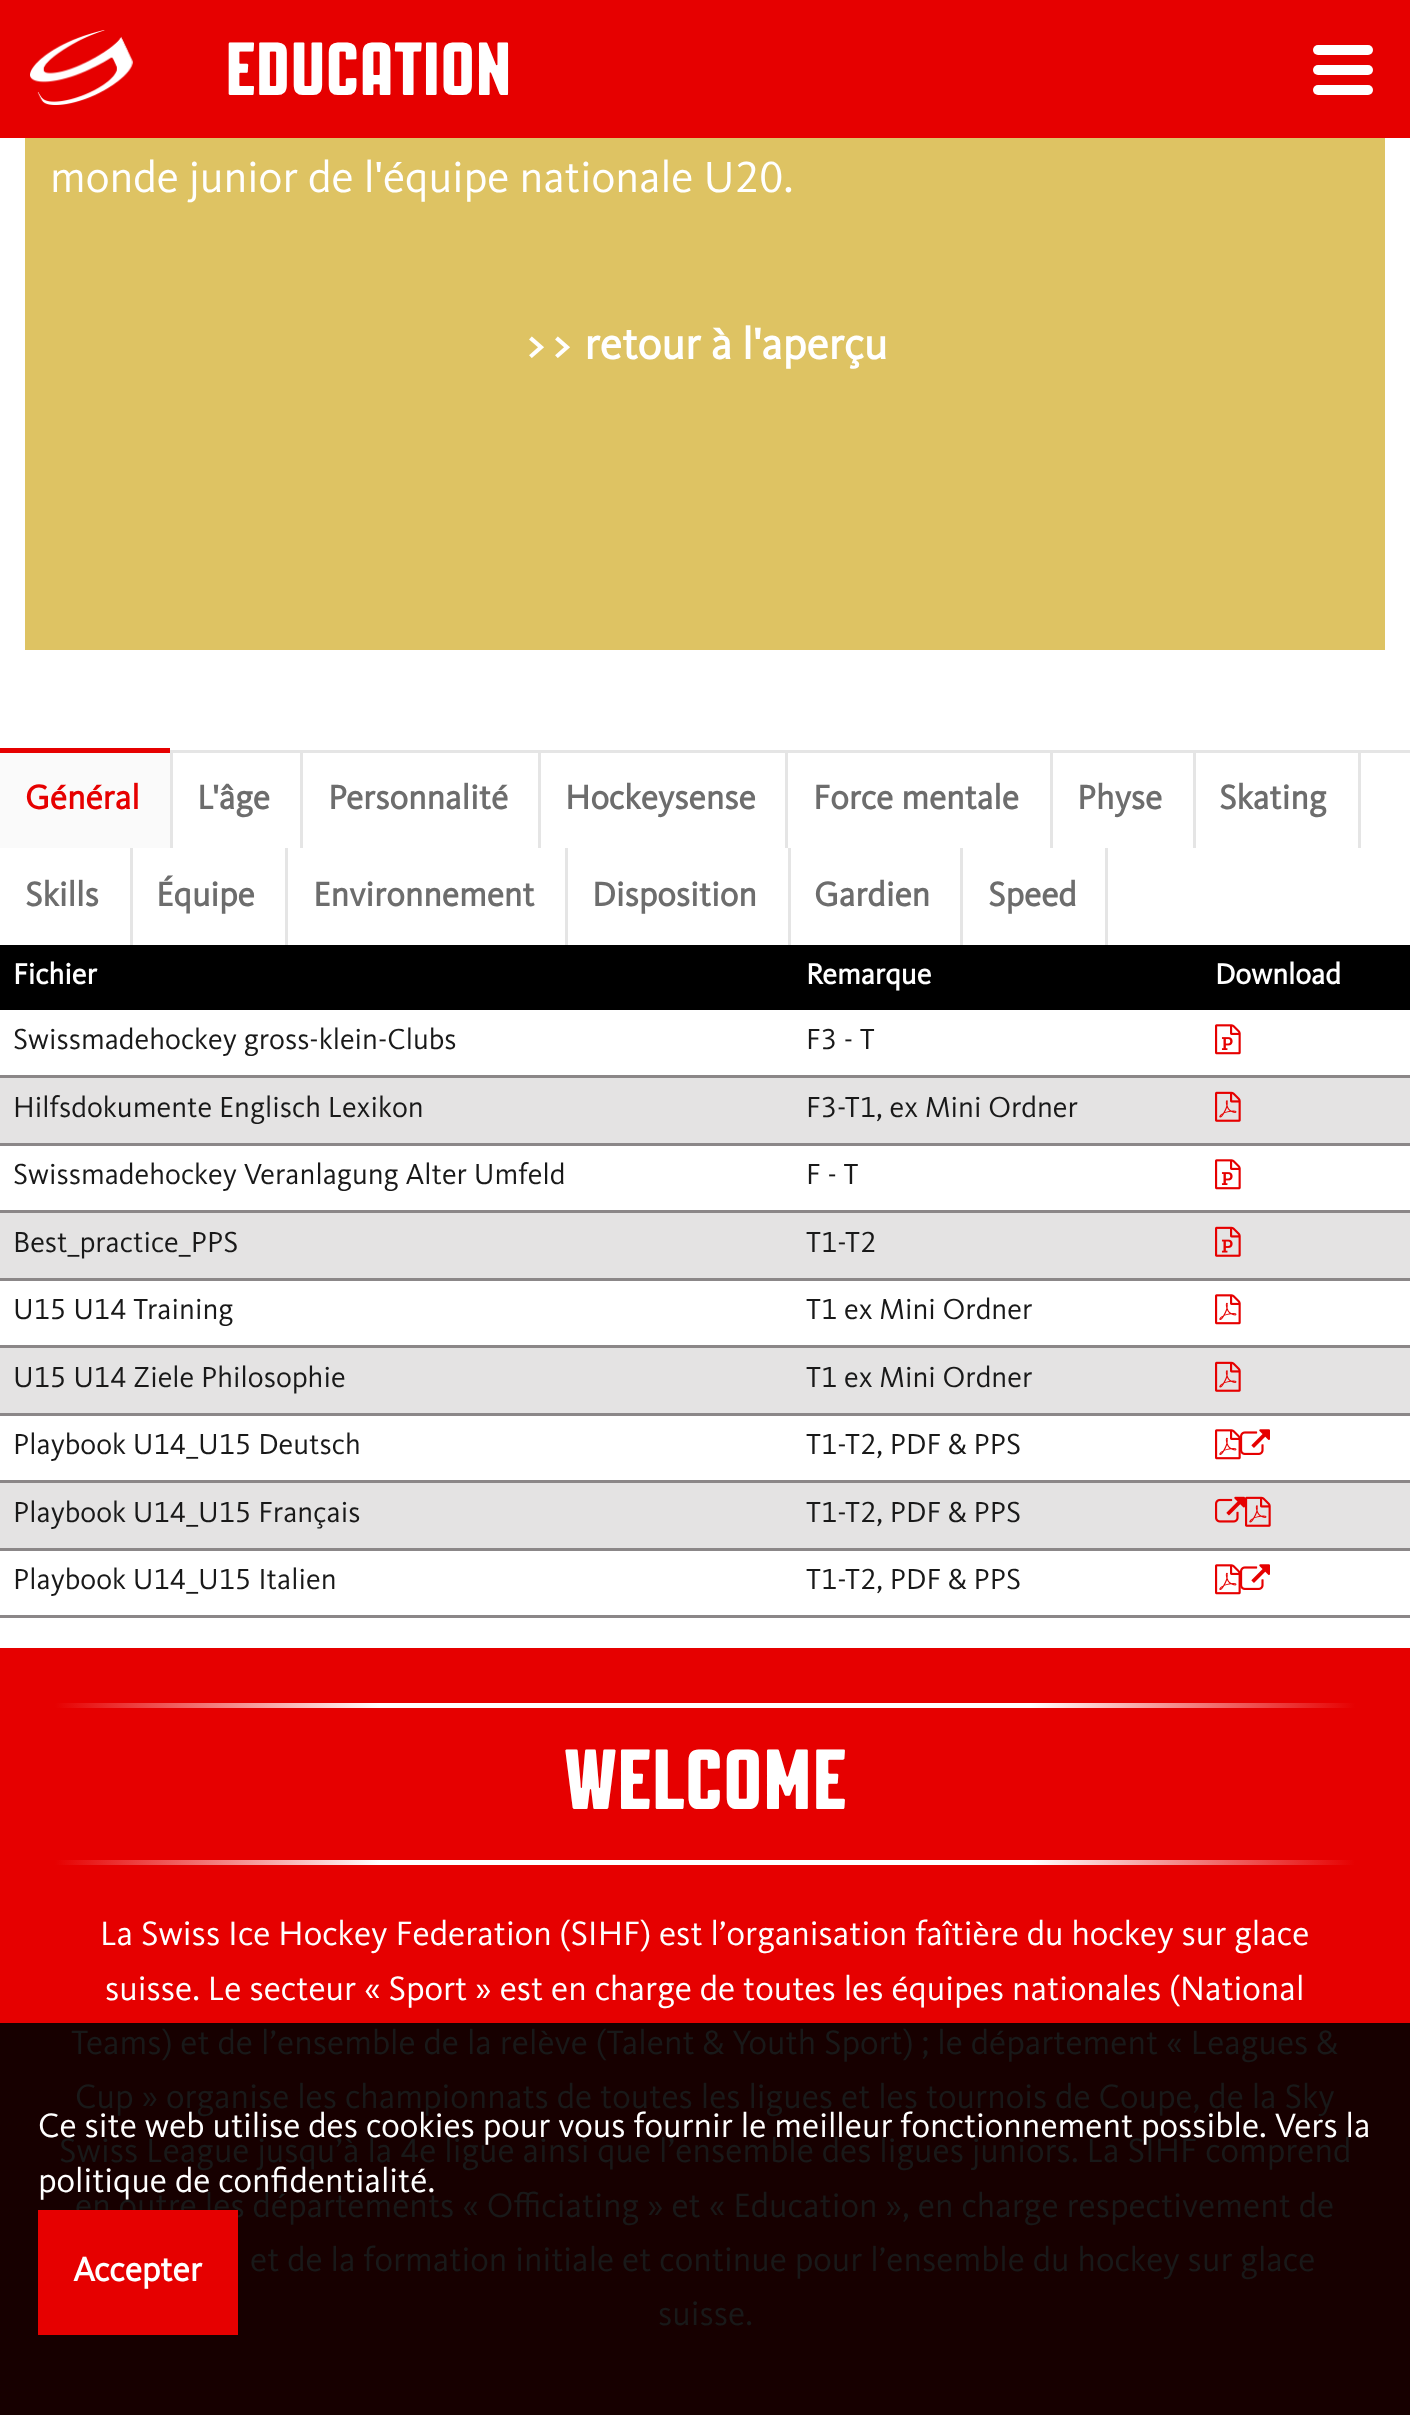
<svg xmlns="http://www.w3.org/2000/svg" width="1410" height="2415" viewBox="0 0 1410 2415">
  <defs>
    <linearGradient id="g1" gradientUnits="userSpaceOnUse" x1="55" y1="1705" x2="1355" y2="1705"><stop offset="0" stop-color="rgb(230,0,0)"/><stop offset="0.25" stop-color="rgb(255,255,255)"/><stop offset="0.75" stop-color="rgb(255,255,255)"/><stop offset="1" stop-color="rgb(230,0,0)"/></linearGradient>
    <linearGradient id="g2" gradientUnits="userSpaceOnUse" x1="55" y1="1863" x2="1355" y2="1863"><stop offset="0" stop-color="rgb(230,0,0)"/><stop offset="0.25" stop-color="rgb(255,255,255)"/><stop offset="0.75" stop-color="rgb(255,255,255)"/><stop offset="1" stop-color="rgb(230,0,0)"/></linearGradient>
  </defs>
  <rect width="100%" height="100%" fill="rgb(255,255,255)"/>
  <rect x="0" y="0" width="1410" height="138" fill="rgb(230,0,0)"/>
  <image x="30" y="30" width="103" height="75" href="pic1.png"/>
  <text x="225" y="95" font-family="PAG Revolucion" font-size="75" fill="rgb(255,255,255)">EDUCATION</text>
  <rect x="1313" y="65" width="60" height="10" rx="5" fill="rgb(255,255,255)"/>
  <rect x="1313" y="45" width="60" height="10" rx="5" fill="rgb(255,255,255)"/>
  <rect x="1313" y="85" width="60" height="10" rx="5" fill="rgb(255,255,255)"/>
  <rect x="25" y="138" width="1360" height="512" fill="rgb(222,195,99)"/>
  <text x="50" y="192" font-family="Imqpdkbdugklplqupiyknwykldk" font-size="45" fill="rgb(255,255,255)">monde junior de l'équipe nationale U20.</text>
  <text x="522" y="359" font-family="Imqpdkbdugklplqupiyknwykldk" font-size="45" font-weight="bold" fill="rgb(255,255,255)">&gt;&gt; retour à l'aperçu</text>
  <rect x="170" y="750" width="1240" height="3" fill="rgb(229,229,229)"/>
  <rect x="170" y="753" width="3" height="95" fill="rgb(229,229,229)"/>
  <rect x="0" y="753" width="170" height="95" fill="rgb(250,250,250)"/>
  <rect x="0" y="748" width="170" height="5" fill="rgb(230,0,0)"/>
  <text x="25" y="809" font-family="Imqpdkbdugklplqupiyknwykldk" font-size="35" font-weight="bold" fill="rgb(230,0,0)">Général</text>
  <rect x="300" y="753" width="3" height="95" fill="rgb(229,229,229)"/>
  <text x="197" y="809" font-family="Imqpdkbdugklplqupiyknwykldk" font-size="35" font-weight="bold" fill="rgb(109,109,109)">L'âge</text>
  <rect x="538" y="753" width="3" height="95" fill="rgb(229,229,229)"/>
  <text x="328" y="809" font-family="Imqpdkbdugklplqupiyknwykldk" font-size="35" font-weight="bold" fill="rgb(109,109,109)">Personnalité</text>
  <rect x="785" y="753" width="3" height="95" fill="rgb(229,229,229)"/>
  <text x="565" y="809" font-family="Imqpdkbdugklplqupiyknwykldk" font-size="35" font-weight="bold" fill="rgb(109,109,109)">Hockeysense</text>
  <rect x="1050" y="753" width="3" height="95" fill="rgb(229,229,229)"/>
  <text x="813" y="809" font-family="Imqpdkbdugklplqupiyknwykldk" font-size="35" font-weight="bold" fill="rgb(109,109,109)">Force mentale</text>
  <rect x="1193" y="753" width="3" height="95" fill="rgb(229,229,229)"/>
  <text x="1077" y="809" font-family="Imqpdkbdugklplqupiyknwykldk" font-size="35" font-weight="bold" fill="rgb(109,109,109)">Physe</text>
  <rect x="1358" y="753" width="3" height="95" fill="rgb(229,229,229)"/>
  <text x="1219" y="809" font-family="Imqpdkbdugklplqupiyknwykldk" font-size="35" font-weight="bold" fill="rgb(109,109,109)">Skating</text>
  <rect x="130" y="848" width="3" height="97" fill="rgb(229,229,229)"/>
  <text x="25" y="906" font-family="Imqpdkbdugklplqupiyknwykldk" font-size="35" font-weight="bold" fill="rgb(109,109,109)">Skills</text>
  <rect x="285" y="848" width="3" height="97" fill="rgb(229,229,229)"/>
  <text x="156" y="906" font-family="Imqpdkbdugklplqupiyknwykldk" font-size="35" font-weight="bold" fill="rgb(109,109,109)">Équipe</text>
  <rect x="565" y="848" width="3" height="97" fill="rgb(229,229,229)"/>
  <text x="313" y="906" font-family="Imqpdkbdugklplqupiyknwykldk" font-size="35" font-weight="bold" fill="rgb(109,109,109)">Environnement</text>
  <rect x="788" y="848" width="3" height="97" fill="rgb(229,229,229)"/>
  <text x="592" y="906" font-family="Imqpdkbdugklplqupiyknwykldk" font-size="35" font-weight="bold" fill="rgb(109,109,109)">Disposition</text>
  <rect x="960" y="848" width="3" height="97" fill="rgb(229,229,229)"/>
  <text x="814" y="906" font-family="Imqpdkbdugklplqupiyknwykldk" font-size="35" font-weight="bold" fill="rgb(109,109,109)">Gardien</text>
  <rect x="1105" y="848" width="3" height="97" fill="rgb(229,229,229)"/>
  <text x="988" y="906" font-family="Imqpdkbdugklplqupiyknwykldk" font-size="35" font-weight="bold" fill="rgb(109,109,109)">Speed</text>
  <rect x="0" y="945" width="1410" height="65" fill="rgb(0,0,0)"/>
  <g font-family="Imqpdkbdugklplqupiyknwykldk" font-size="30" font-weight="bold" fill="rgb(255,255,255)">
    <text x="13" y="984">Fichier</text>
    <text x="806" y="984">Remarque</text>
    <text x="1215" y="984">Download</text>
  </g>
  <rect x="0" y="1075" width="1410" height="3" fill="rgb(139,135,136)"/>
  <g font-family="Imqpdkbdugklplqupiyknwykldk" font-size="30" fill="rgb(25,25,25)">
    <text x="13" y="1049">Swissmadehockey gross-klein-Clubs</text>
    <text x="806" y="1049">F3 - T</text>
  </g>
  <image x="1215" y="1024" width="26" height="31" href="pic2.png"/>
  <rect x="0" y="1078" width="1410" height="65" fill="rgb(228,227,227)"/>
  <rect x="0" y="1143" width="1410" height="3" fill="rgb(139,135,136)"/>
  <g font-family="Imqpdkbdugklplqupiyknwykldk" font-size="30" fill="rgb(25,25,25)">
    <text x="13" y="1117">Hilfsdokumente Englisch Lexikon</text>
    <text x="806" y="1117">F3-T1, ex Mini Ordner</text>
  </g>
  <image x="1215" y="1091" width="26" height="31" href="pic3.png"/>
  <rect x="0" y="1210" width="1410" height="3" fill="rgb(139,135,136)"/>
  <g font-family="Imqpdkbdugklplqupiyknwykldk" font-size="30" fill="rgb(25,25,25)">
    <text x="13" y="1184">Swissmadehockey Veranlagung Alter Umfeld</text>
    <text x="806" y="1184">F - T</text>
  </g>
  <image x="1215" y="1159" width="26" height="31" href="pic2.png"/>
  <rect x="0" y="1213" width="1410" height="65" fill="rgb(228,227,227)"/>
  <rect x="0" y="1278" width="1410" height="3" fill="rgb(139,135,136)"/>
  <g font-family="Imqpdkbdugklplqupiyknwykldk" font-size="30" fill="rgb(25,25,25)">
    <text x="13" y="1252">Best_practice_PPS</text>
    <text x="806" y="1252">T1-T2</text>
  </g>
  <image x="1215" y="1226" width="26" height="31" href="pic4.png"/>
  <rect x="0" y="1345" width="1410" height="3" fill="rgb(139,135,136)"/>
  <g font-family="Imqpdkbdugklplqupiyknwykldk" font-size="30" fill="rgb(25,25,25)">
    <text x="13" y="1319">U15 U14 Training</text>
    <text x="806" y="1319">T1 ex Mini Ordner</text>
  </g>
  <image x="1215" y="1294" width="26" height="31" href="pic5.png"/>
  <rect x="0" y="1348" width="1410" height="65" fill="rgb(228,227,227)"/>
  <rect x="0" y="1413" width="1410" height="3" fill="rgb(139,135,136)"/>
  <g font-family="Imqpdkbdugklplqupiyknwykldk" font-size="30" fill="rgb(25,25,25)">
    <text x="13" y="1387">U15 U14 Ziele Philosophie</text>
    <text x="806" y="1387">T1 ex Mini Ordner</text>
  </g>
  <image x="1215" y="1361" width="26" height="31" href="pic3.png"/>
  <rect x="0" y="1480" width="1410" height="3" fill="rgb(139,135,136)"/>
  <g font-family="Imqpdkbdugklplqupiyknwykldk" font-size="30" fill="rgb(25,25,25)">
    <text x="13" y="1454">Playbook U14_U15 Deutsch</text>
    <text x="806" y="1454">T1-T2, PDF &amp; PPS</text>
  </g>
  <image x="1215" y="1429" width="26" height="31" href="pic5.png"/>
  <image x="1240" y="1429" width="30" height="26" href="pic6.png"/>
  <rect x="0" y="1483" width="1410" height="65" fill="rgb(228,227,227)"/>
  <rect x="0" y="1548" width="1410" height="3" fill="rgb(139,135,136)"/>
  <g font-family="Imqpdkbdugklplqupiyknwykldk" font-size="30" fill="rgb(25,25,25)">
    <text x="13" y="1522">Playbook U14_U15 Français</text>
    <text x="806" y="1522">T1-T2, PDF &amp; PPS</text>
  </g>
  <image x="1215" y="1496" width="30" height="27" href="pic7.png"/>
  <image x="1245" y="1496" width="26" height="31" href="pic3.png"/>
  <rect x="0" y="1615" width="1410" height="3" fill="rgb(139,135,136)"/>
  <g font-family="Imqpdkbdugklplqupiyknwykldk" font-size="30" fill="rgb(25,25,25)">
    <text x="13" y="1589">Playbook U14_U15 Italien</text>
    <text x="806" y="1589">T1-T2, PDF &amp; PPS</text>
  </g>
  <image x="1215" y="1564" width="26" height="31" href="pic5.png"/>
  <image x="1240" y="1564" width="30" height="26" href="pic6.png"/>
  <rect x="0" y="1648" width="1410" height="375" fill="rgb(230,0,0)"/>
  <rect x="0" y="2023" width="1410" height="392" fill="rgb(23,0,0)"/>
  <rect x="55" y="1703" width="1300" height="5" fill="url(#g1)"/>
  <text x="564" y="1809" font-family="PAG Revolucion" font-size="85" fill="rgb(255,255,255)">WELCOME</text>
  <rect x="55" y="1860" width="1300" height="5" fill="url(#g2)"/>
  <g font-family="Imqpdkbdugklplqupiyknwykldk" font-size="35" fill="rgb(255,255,255)">
    <text x="100" y="1945">La Swiss Ice Hockey Federation (SIHF) est l’organisation faîtière du hockey sur glace</text>
    <text x="105" y="2000">suisse. Le secteur « Sport » est en charge de toutes les équipes nationales (National</text>
  </g>
  <g font-family="Imqpdkbdugklplqupiyknwykldk" font-size="35" fill="rgb(25,25,25)">
    <text x="71" y="2054">Teams) et de l’ensemble de la relève (Talent &amp; Youth Sport) ; le département « Leagues &amp;</text>
    <text x="75" y="2108">Cup » organise les championnats de toutes les ligues et les tournois de Coupe, de la Sky</text>
    <text x="59" y="2162">Swiss League jusqu’à la 4e ligue ainsi que l’ensemble des ligues juniors. La SIHF comprend</text>
    <text x="75" y="2217">en outre les départements « Officiating » et « Education », en charge respectivement de</text>
    <text x="250" y="2271">et de la formation initiale et continue pour l’ensemble du hockey sur glace</text>
    <text x="658" y="2325">suisse.</text>
  </g>
  <g font-family="Imqpdkbdugklplqupiyknwykldk" font-size="35" fill="rgb(255,255,255)">
    <text>
      <tspan x="38" y="2137">Ce site web utilise des cookies pour vous fournir le meilleur fonctionnement possible. Vers la</tspan>
      <tspan x="38" y="2192">politique de confidentialité.</tspan>
    </text>
  </g>
  <rect x="38" y="2210" width="200" height="125" fill="rgb(230,0,0)"/>
  <text x="73" y="2281" font-family="Imqpdkbdugklplqupiyknwykldk" font-size="35" font-weight="bold" fill="rgb(255,255,255)">Accepter</text>
</svg>
